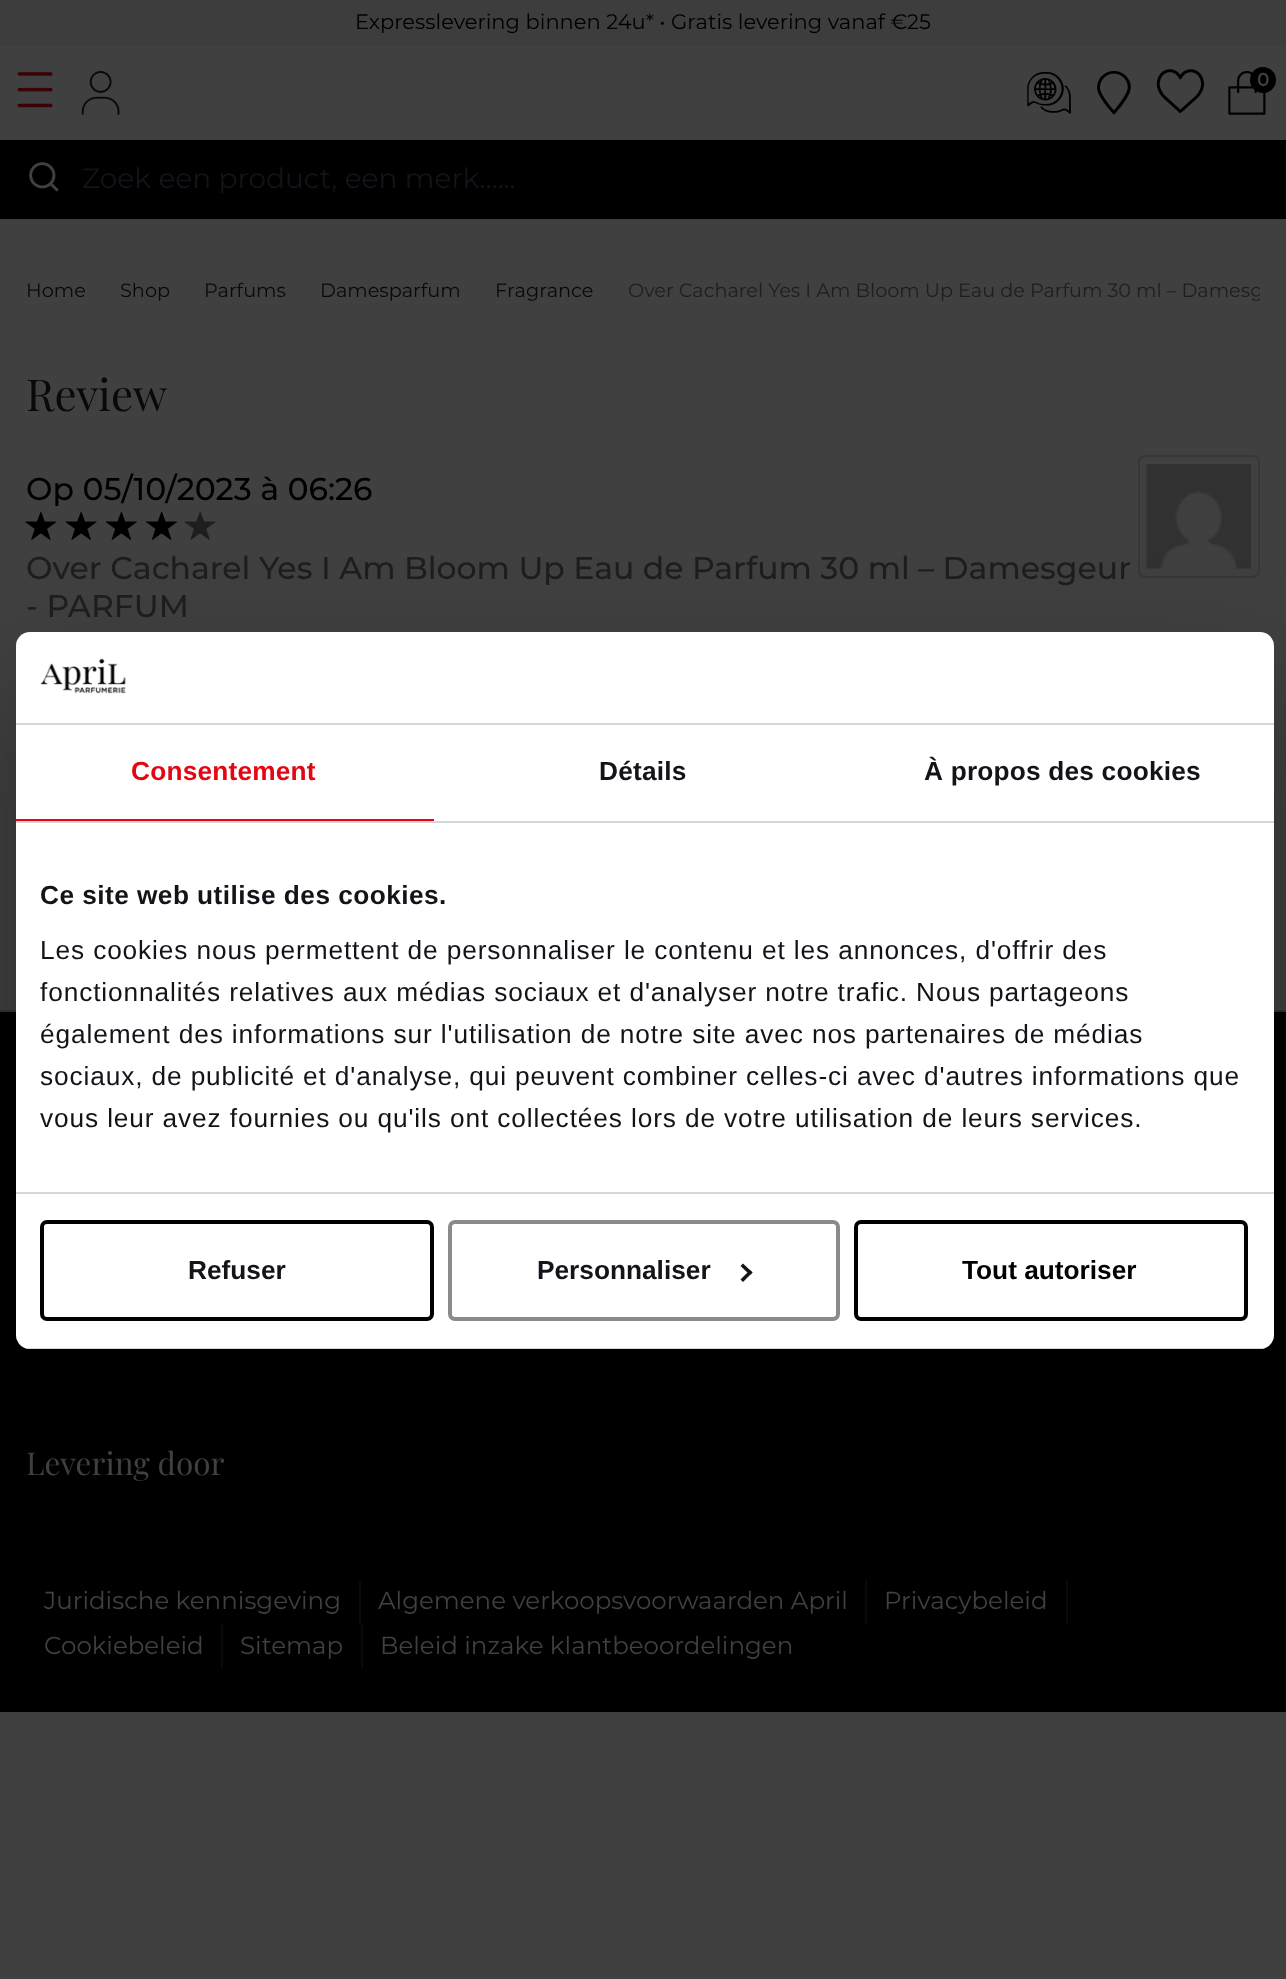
<svg xmlns="http://www.w3.org/2000/svg" width="1286" height="1979" viewBox="0 0 1286 1979">
  <defs>
    <clipPath id="clip1"><rect x="26" y="250" width="1234" height="83" rx="7"/></clipPath>
    <clipPath id="clip2"><rect x="16" y="632" width="1258" height="717" rx="14"/></clipPath>
  </defs>
  <rect width="100%" height="100%" fill="rgb(64,64,64)"/>
  <rect x="0" y="0" width="1286" height="46" fill="rgb(61,61,61)"/>
  <text x="355" y="29" font-family="Montserrat" font-size="21" fill="rgb(0,0,0)">Expresslevering binnen 24u* • Gratis levering vanaf €25</text>
  <image x="17" y="72" width="36" height="36" href="pic1.png"/>
  <image x="81" y="71" width="39" height="44" href="pic2.png"/>
  <image x="1027" y="72" width="44" height="42" href="pic3.png"/>
  <image x="1097" y="71" width="34" height="44" href="pic4.png"/>
  <image x="1156" y="69" width="48" height="44" href="pic5.png"/>
  <image x="1228" y="71" width="38" height="44" href="pic6.png"/>
  <circle cx="1263" cy="80" r="13" fill="rgb(0,0,0)"/>
  <text x="1257" y="86" font-family="Montserrat" font-size="18" font-weight="bold" fill="rgb(64,64,64)">0</text>
  <rect x="0" y="140" width="1286" height="79" fill="rgb(0,0,0)"/>
  <image x="29" y="162" width="30" height="30" href="pic7.png"/>
  <text x="82" y="188" font-family="Montserrat" font-size="28" fill="rgb(19,19,25)">Zoek een product, een merk…...</text>
  <g font-family="Montserrat" font-size="19.25" fill="rgb(9,9,9)">
    <text x="26" y="297">Home</text>
    <text x="120" y="297">Shop</text>
    <text x="204" y="297">Parfums</text>
    <text x="320" y="297">Damesparfum</text>
    <text x="495" y="297">Fragrance</text>
  </g>
  <g clip-path="url(#clip1)">
    <text x="628" y="297" font-family="Montserrat" font-size="19.25" fill="rgb(30,30,30)">Over Cacharel Yes I Am Bloom Up Eau de Parfum 30 ml – Damesg</text>
  </g>
  <text x="26" y="411" font-family="Playfair Display" font-size="44" fill="rgb(9,9,9)">Review</text>
  <text x="26" y="500" font-family="Montserrat" font-size="31.5" font-weight="500" fill="rgb(0,0,0)">Op 05/10/2023 à 06:26</text>
  <image x="25" y="511" width="32" height="29" href="pic8.png"/>
  <image x="65" y="511" width="32" height="29" href="pic9.png"/>
  <image x="105" y="511" width="32" height="29" href="pic10.png"/>
  <image x="145" y="511" width="33" height="29" href="pic11.png"/>
  <image x="184" y="511" width="32" height="29" href="pic12.png"/>
  <g font-family="Montserrat" font-size="31.5" font-weight="500" fill="rgb(30,30,30)">
    <text>
      <tspan x="26" y="579">Over Cacharel Yes I Am Bloom Up Eau de Parfum 30 ml – Damesgeur</tspan>
      <tspan x="26" y="617">- PARFUM</tspan>
    </text>
  </g>
  <rect x="1139" y="456" width="120" height="121" rx="6" fill="none" stroke="rgb(55,55,55)" stroke-width="2"/>
  <image x="1146" y="464" width="105" height="105" href="pic13.png"/>
  <rect x="0" y="1012" width="1286" height="700" fill="rgb(0,0,0)"/>
  <rect x="0" y="1010" width="1286" height="2" fill="rgb(52,52,52)"/>
  <rect x="359" y="1580" width="2" height="44" fill="rgb(9,9,9)"/>
  <rect x="865" y="1580" width="2" height="44" fill="rgb(9,9,9)"/>
  <rect x="1066" y="1580" width="2" height="44" fill="rgb(9,9,9)"/>
  <rect x="16" y="688" width="1258" height="717" rx="14" fill="rgba(0,0,0,0.3)" filter="blur(59.5px)"/>
  <rect x="16" y="632" width="1258" height="717" rx="14" fill="rgb(255,255,255)"/>
  <rect x="16" y="723" width="1258" height="2" fill="rgb(214,214,214)"/>
  <image x="41" y="658" width="85" height="36" href="pic14.png"/>
  <rect x="16" y="821" width="1258" height="2" fill="rgb(214,214,214)"/>
  <rect x="16" y="819" width="418" height="2" fill="rgb(227,6,19)"/>
  <text x="131" y="780" font-family="Liberation Sans" font-size="26.25" font-weight="bold" letter-spacing="0.2" fill="rgb(227,6,19)">Consentement</text>
  <g font-family="Liberation Sans" font-size="26.25" font-weight="bold" letter-spacing="0.2" fill="rgb(19,19,25)">
    <text x="599" y="780">Détails</text>
    <text x="924" y="780">À propos des cookies</text>
  </g>
  <rect x="16" y="1192" width="1258" height="2" fill="rgb(214,214,214)"/>
  <text x="40" y="904" font-family="Liberation Sans" font-size="26.25" font-weight="bold" letter-spacing="0.45" fill="rgb(19,19,25)">Ce site web utilise des cookies.</text>
  <g font-family="Liberation Sans" font-size="26.25" letter-spacing="0.88" fill="rgb(19,19,25)">
    <text>
      <tspan x="40" y="959">Les cookies nous permettent de personnaliser le contenu et les annonces, d'offrir des</tspan>
      <tspan x="40" y="1001">fonctionnalités relatives aux médias sociaux et d'analyser notre trafic. Nous partageons</tspan>
      <tspan x="40" y="1043">également des informations sur l'utilisation de notre site avec nos partenaires de médias</tspan>
      <tspan x="40" y="1085">sociaux, de publicité et d'analyse, qui peuvent combiner celles-ci avec d'autres informations que</tspan>
      <tspan x="40" y="1127">vous leur avez fournies ou qu'ils ont collectées lors de votre utilisation de leurs services.</tspan>
    </text>
  </g>
  <g clip-path="url(#clip2)">
    <rect x="25" y="1348" width="1240" height="1" fill="rgb(214,214,214)"/>
  </g>
  <rect x="42" y="1222" width="390" height="97" rx="5" fill="none" stroke="rgb(0,0,0)" stroke-width="4"/>
  <text x="188" y="1279" font-family="Liberation Sans" font-size="26.25" font-weight="bold" fill="rgb(19,19,25)">Refuser</text>
  <rect x="450" y="1222" width="388" height="97" rx="5" fill="none" stroke="rgb(139,139,139)" stroke-width="4"/>
  <text x="537" y="1279" font-family="Liberation Sans" font-size="26.25" font-weight="bold" fill="rgb(19,19,25)">Personnaliser</text>
  <path d="M743 1263.5L752.5 1272.5L750 1275L740.5 1266Z" fill="rgb(20,20,20)"/>
  <path d="M750 1270L752.5 1272.5L743 1282L740.5 1279.5Z" fill="rgb(20,20,20)"/>
  <rect x="856" y="1222" width="390" height="97" rx="5" fill="none" stroke="rgb(0,0,0)" stroke-width="4"/>
  <text x="962" y="1279" font-family="Liberation Sans" font-size="26.25" font-weight="bold" fill="rgb(0,0,0)">Tout autoriser</text>
  <text x="26" y="1475" font-family="Playfair Display" font-size="31.5" fill="rgb(64,64,64)">Levering door</text>
  <g font-family="Montserrat" font-size="24.5" fill="rgb(64,64,64)">
    <text x="44" y="1609">Juridische kennisgeving</text>
    <text x="378" y="1609">Algemene verkoopsvoorwaarden April</text>
    <text x="884" y="1609">Privacybeleid</text>
  </g>
  <rect x="221" y="1624" width="2" height="44" fill="rgb(9,9,9)"/>
  <text x="44" y="1654" font-family="Montserrat" font-size="24.5" fill="rgb(64,64,64)">Cookiebeleid</text>
  <rect x="361" y="1624" width="2" height="44" fill="rgb(9,9,9)"/>
  <g font-family="Montserrat" font-size="24.5" fill="rgb(64,64,64)">
    <text x="240" y="1654">Sitemap</text>
    <text x="380" y="1654">Beleid inzake klantbeoordelingen</text>
  </g>
</svg>
